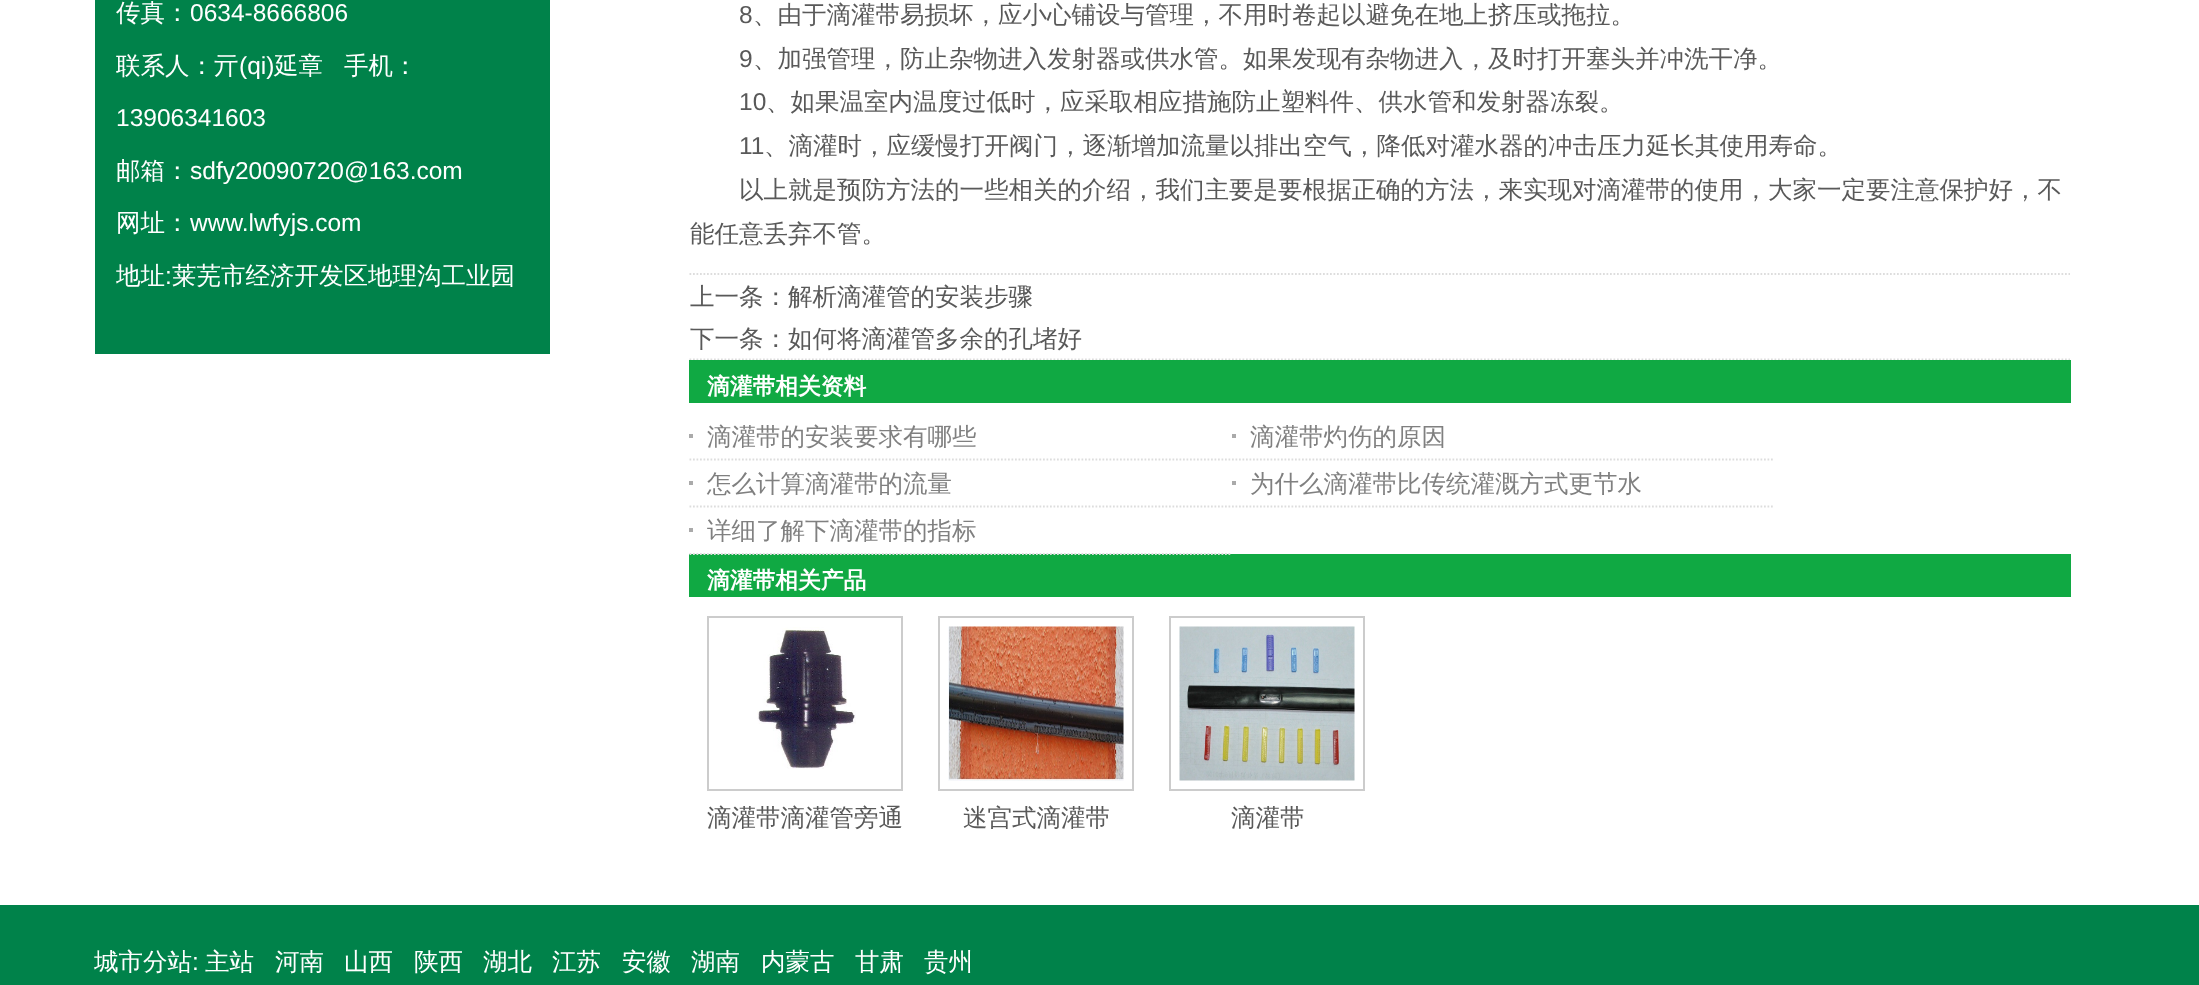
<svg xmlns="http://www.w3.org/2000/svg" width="2199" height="985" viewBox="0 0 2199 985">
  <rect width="100%" height="100%" fill="rgb(255,255,255)"/>
  <rect x="95" y="0" width="455" height="354" fill="rgb(0,130,74)"/>
  <text x="116" y="21" font-family="WenQuanYi Zen Hei" font-size="24.5" font-weight="500" fill="rgb(255,255,255)">传真：</text>
  <text x="190" y="21" font-family="Liberation Sans" font-size="24.5" fill="rgb(255,255,255)">0634-8666806</text>
  <text x="116" y="74" font-family="WenQuanYi Zen Hei" font-size="24.5" font-weight="500" fill="rgb(255,255,255)">联系人：亓</text>
  <text x="239" y="74" font-family="Liberation Sans" font-size="24.5" fill="rgb(255,255,255)">(qi)</text>
  <g font-family="WenQuanYi Zen Hei" font-size="24.5" font-weight="500" fill="rgb(255,255,255)">
    <text x="274" y="74">延章</text>
    <text x="344" y="74">手机：</text>
  </g>
  <text x="116" y="126" font-family="Liberation Sans" font-size="24.5" fill="rgb(255,255,255)">13906341603</text>
  <text x="116" y="179" font-family="WenQuanYi Zen Hei" font-size="24.5" font-weight="500" fill="rgb(255,255,255)">邮箱：</text>
  <text x="190" y="179" font-family="Liberation Sans" font-size="24.5" fill="rgb(255,255,255)">sdfy20090720@163.com</text>
  <text x="116" y="231" font-family="WenQuanYi Zen Hei" font-size="24.5" font-weight="500" fill="rgb(255,255,255)">网址：</text>
  <text x="190" y="231" font-family="Liberation Sans" font-size="24.5" fill="rgb(255,255,255)">www.lwfyjs.com</text>
  <text x="116" y="284" font-family="WenQuanYi Zen Hei" font-size="24.5" font-weight="500" fill="rgb(255,255,255)">地址</text>
  <text x="165" y="284" font-family="Liberation Sans" font-size="24.5" fill="rgb(255,255,255)">:</text>
  <text x="172" y="284" font-family="WenQuanYi Zen Hei" font-size="24.5" font-weight="500" fill="rgb(255,255,255)">莱芜市经济开发区地理沟工业园</text>
  <text x="739" y="23" font-family="Liberation Sans" font-size="24.5" fill="rgb(89,89,89)">8</text>
  <text x="753" y="23" font-family="WenQuanYi Zen Hei" font-size="24.5" font-weight="500" fill="rgb(89,89,89)">、由于滴灌带易损坏，应小心铺设与管理，不用时卷起以避免在地上挤压或拖拉。</text>
  <text x="739" y="67" font-family="Liberation Sans" font-size="24.5" fill="rgb(89,89,89)">9</text>
  <text x="753" y="67" font-family="WenQuanYi Zen Hei" font-size="24.5" font-weight="500" fill="rgb(89,89,89)">、加强管理，防止杂物进入发射器或供水管。如果发现有杂物进入，及时打开塞头并冲洗干净。</text>
  <text x="739" y="110" font-family="Liberation Sans" font-size="24.5" fill="rgb(89,89,89)">10</text>
  <text x="766" y="110" font-family="WenQuanYi Zen Hei" font-size="24.5" font-weight="500" fill="rgb(89,89,89)">、如果温室内温度过低时，应采取相应措施防止塑料件、供水管和发射器冻裂。</text>
  <text x="739" y="154" font-family="Liberation Sans" font-size="24.5" fill="rgb(89,89,89)">11</text>
  <g font-family="WenQuanYi Zen Hei" font-size="24.5" font-weight="500" fill="rgb(89,89,89)">
    <text x="764" y="154">、滴灌时，应缓慢打开阀门，逐渐增加流量以排出空气，降低对灌水器的冲击压力延长其使用寿命。</text>
    <text x="739" y="198">以上就是预防方法的一些相关的介绍，我们主要是要根据正确的方法，来实现对滴灌带的使用，大家一定要注意保护好，不</text>
    <text x="690" y="242">能任意丢弃不管。</text>
  </g>
  <path d="M689.5 274H2070" fill="none" stroke="rgb(221,221,221)" stroke-width="1.8" stroke-dasharray="1.75 1.75"/>
  <path d="M689.5 359.5H2070" fill="none" stroke="rgb(221,221,221)" stroke-width="1.8" stroke-dasharray="1.75 1.75"/>
  <g font-family="WenQuanYi Zen Hei" font-size="24.5" font-weight="500" fill="rgb(89,89,89)">
    <text>
      <tspan x="690" y="305">上一条：解析滴灌管的安装步骤</tspan>
      <tspan x="690" y="347">下一条：如何将滴灌管多余的孔堵好</tspan>
    </text>
  </g>
  <rect x="689" y="360" width="1382" height="43" fill="rgb(16,169,67)"/>
  <text x="707" y="394" font-family="WenQuanYi Zen Hei" font-size="22.75" font-weight="bold" fill="rgb(255,255,255)">滴灌带相关资料</text>
  <rect x="689" y="434" width="4" height="4" fill="rgb(170,170,170)"/>
  <path d="M689.5 459.5H1232" fill="none" stroke="rgb(221,221,221)" stroke-width="1.8" stroke-dasharray="1.75 1.75"/>
  <text x="707" y="445" font-family="WenQuanYi Zen Hei" font-size="24.5" font-weight="500" fill="rgb(128,128,128)">滴灌带的安装要求有哪些</text>
  <rect x="1232" y="434" width="4" height="4" fill="rgb(170,170,170)"/>
  <path d="M1232 459.5H1774.5" fill="none" stroke="rgb(221,221,221)" stroke-width="1.8" stroke-dasharray="1.75 1.75"/>
  <text x="1250" y="445" font-family="WenQuanYi Zen Hei" font-size="24.5" font-weight="500" fill="rgb(128,128,128)">滴灌带灼伤的原因</text>
  <rect x="689" y="481" width="4" height="4" fill="rgb(170,170,170)"/>
  <path d="M689.5 506.5H1232" fill="none" stroke="rgb(221,221,221)" stroke-width="1.8" stroke-dasharray="1.75 1.75"/>
  <text x="707" y="492" font-family="WenQuanYi Zen Hei" font-size="24.5" font-weight="500" fill="rgb(128,128,128)">怎么计算滴灌带的流量</text>
  <rect x="1232" y="481" width="4" height="4" fill="rgb(170,170,170)"/>
  <path d="M1232 506.5H1774.5" fill="none" stroke="rgb(221,221,221)" stroke-width="1.8" stroke-dasharray="1.75 1.75"/>
  <text x="1250" y="492" font-family="WenQuanYi Zen Hei" font-size="24.5" font-weight="500" fill="rgb(128,128,128)">为什么滴灌带比传统灌溉方式更节水</text>
  <rect x="689" y="528" width="4" height="4" fill="rgb(170,170,170)"/>
  <rect x="689" y="554" width="1382" height="43" fill="rgb(16,169,67)"/>
  <path d="M689.5 554H1232" fill="none" stroke="rgb(221,221,221)" stroke-width="1.8" stroke-dasharray="1.75 1.75"/>
  <text x="707" y="539" font-family="WenQuanYi Zen Hei" font-size="24.5" font-weight="500" fill="rgb(128,128,128)">详细了解下滴灌带的指标</text>
  <text x="707" y="588" font-family="WenQuanYi Zen Hei" font-size="22.75" font-weight="bold" fill="rgb(255,255,255)">滴灌带相关产品</text>
  <rect x="708" y="617" width="194" height="173" fill="none" stroke="rgb(204,204,204)" stroke-width="2"/>
  <image x="757" y="627" width="99" height="142" href="pic1.png"/>
  <text x="707" y="826" font-family="WenQuanYi Zen Hei" font-size="24.5" font-weight="500" fill="rgb(89,89,89)">滴灌带滴灌管旁通</text>
  <rect x="939" y="617" width="194" height="173" fill="none" stroke="rgb(204,204,204)" stroke-width="2"/>
  <image x="948" y="626" width="176" height="155" href="pic2.png"/>
  <text x="963" y="826" font-family="WenQuanYi Zen Hei" font-size="24.5" font-weight="500" fill="rgb(89,89,89)">迷宫式滴灌带</text>
  <rect x="1170" y="617" width="194" height="173" fill="none" stroke="rgb(204,204,204)" stroke-width="2"/>
  <image x="1179" y="626" width="176" height="155" href="pic3.png"/>
  <text x="1231" y="826" font-family="WenQuanYi Zen Hei" font-size="24.5" font-weight="500" fill="rgb(89,89,89)">滴灌带</text>
  <rect x="0" y="905" width="2199" height="80" fill="rgb(0,130,74)"/>
  <text x="94" y="970" font-family="WenQuanYi Zen Hei" font-size="24.5" font-weight="500" fill="rgb(255,255,255)">城市分站</text>
  <text x="192" y="970" font-family="Liberation Sans" font-size="24.5" fill="rgb(255,255,255)">:</text>
  <g font-family="WenQuanYi Zen Hei" font-size="24.5" font-weight="500" fill="rgb(255,255,255)">
    <text x="205" y="970">主站</text>
    <text x="275" y="970">河南</text>
    <text x="344" y="970">山西</text>
    <text x="414" y="970">陕西</text>
    <text x="483" y="970">湖北</text>
    <text x="552" y="970">江苏</text>
    <text x="622" y="970">安徽</text>
    <text x="691" y="970">湖南</text>
    <text x="761" y="970">内蒙古</text>
    <text x="855" y="970">甘肃</text>
    <text x="924" y="970">贵州</text>
  </g>
</svg>
